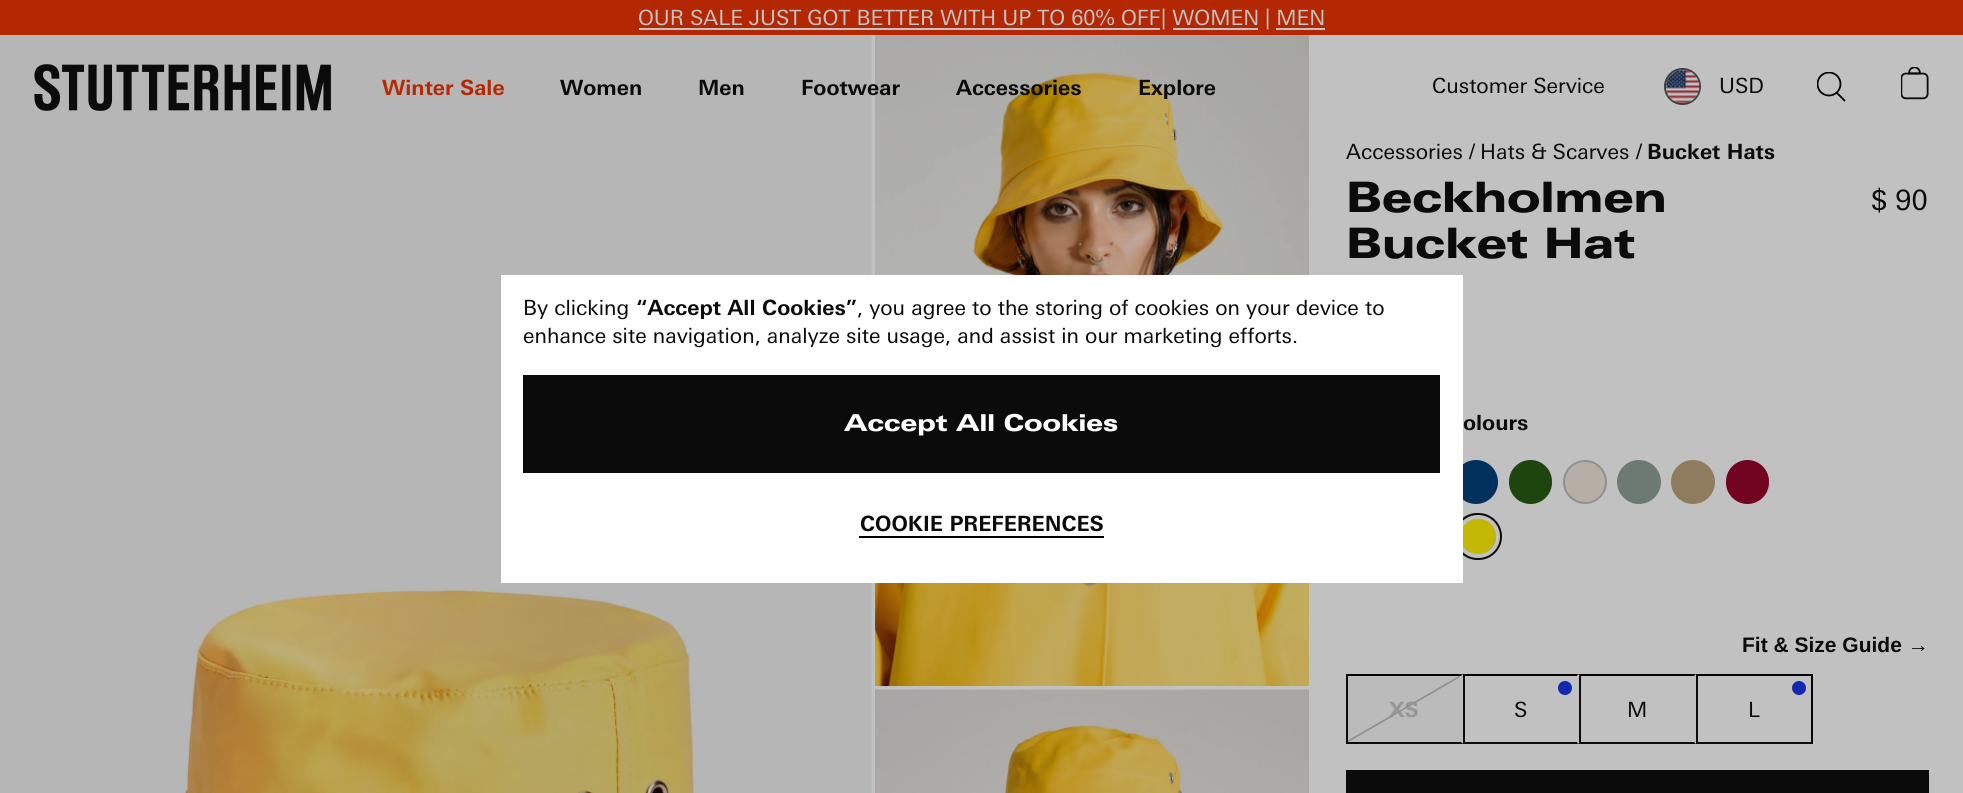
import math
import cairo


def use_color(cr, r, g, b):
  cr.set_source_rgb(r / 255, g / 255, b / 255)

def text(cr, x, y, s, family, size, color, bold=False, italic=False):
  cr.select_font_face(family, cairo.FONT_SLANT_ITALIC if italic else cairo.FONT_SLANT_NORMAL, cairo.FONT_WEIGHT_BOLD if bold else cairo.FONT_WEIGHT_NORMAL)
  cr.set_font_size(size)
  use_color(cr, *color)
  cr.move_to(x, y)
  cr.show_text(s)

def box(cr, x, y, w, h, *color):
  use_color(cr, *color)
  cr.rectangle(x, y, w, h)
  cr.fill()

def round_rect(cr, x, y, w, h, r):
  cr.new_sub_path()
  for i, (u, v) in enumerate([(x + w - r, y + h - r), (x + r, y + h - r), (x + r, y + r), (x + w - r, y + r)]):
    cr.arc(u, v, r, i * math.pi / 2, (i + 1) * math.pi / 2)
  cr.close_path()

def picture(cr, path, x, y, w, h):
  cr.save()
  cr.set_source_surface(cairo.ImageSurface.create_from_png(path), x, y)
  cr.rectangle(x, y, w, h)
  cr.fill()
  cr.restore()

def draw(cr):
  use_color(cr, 193, 193, 193)
  cr.paint()
  box(cr, 0, 0, 1963, 35, 179, 40, 3)
  box(cr, 639, 28, 521, 2, 194, 194, 194)
  box(cr, 1173, 28, 85, 2, 194, 194, 194)
  box(cr, 1276, 28, 49, 2, 194, 194, 194)
  picture(cr, "img_04.png", 0, 35, 872, 758)
  picture(cr, "img_01.png", 34, 64, 297, 47)
  cr.arc(1682.5, 86.5, 17.5, 0, 2 * math.pi)
  use_color(cr, 62, 62, 62)
  cr.stroke()
  picture(cr, "img_02.png", 1666, 70, 34, 34)
  cr.save()
  cr.rectangle(1817, 72, 29, 30)
  cr.clip()
  cr.arc(1829, 84, 11.5, 0, 2 * math.pi)
  use_color(cr, 3, 3, 3)
  cr.set_line_width(1.8)
  cr.stroke()
  cr.restore()
  cr.new_path()
  cr.move_to(1837, 93)
  cr.line_to(1844.5, 100.5)
  use_color(cr, 3, 3, 3)
  cr.set_line_width(1.8)
  cr.set_line_cap(cairo.LINE_CAP_ROUND)
  cr.stroke()
  picture(cr, "img_03.png", 1901, 67, 28, 33)
  picture(cr, "img_05.png", 875, 35, 434, 651)
  use_color(cr, 3, 49, 94)
  cr.arc(1476, 482, 22, 0, 2 * math.pi)
  cr.fill()
  use_color(cr, 194, 184, 3)
  cr.arc(1476, 535, 21, 0, 2 * math.pi)
  cr.fill_preserve()
  use_color(cr, 144, 144, 144)
  cr.set_line_width(2)
  cr.set_line_cap(cairo.LINE_CAP_BUTT)
  cr.stroke()
  round_rect(cr, 1458, 517, 40, 39, 19.5)
  use_color(cr, 193, 193, 193)
  cr.set_line_width(4)
  cr.stroke()
  round_rect(cr, 1455, 514, 46, 45, 22.5)
  use_color(cr, 11, 11, 11)
  cr.set_line_width(2)
  cr.stroke()
  box(cr, 501, 275, 962, 308, 255, 255, 255)
  box(cr, 523, 375, 917, 98, 11, 11, 11)
  box(cr, 859, 536, 245, 2, 0, 0, 0)
  picture(cr, "img_06.png", 875, 689, 434, 104)
  use_color(cr, 31, 69, 14)
  round_rect(cr, 1509, 460, 43, 44, 21.5)
  cr.fill()
  use_color(cr, 183, 175, 165)
  cr.arc(1585, 482, 21, 0, 2 * math.pi)
  cr.fill_preserve()
  use_color(cr, 144, 144, 144)
  cr.stroke()
  use_color(cr, 109, 122, 115)
  cr.arc(1639, 482, 22, 0, 2 * math.pi)
  cr.fill()
  use_color(cr, 143, 124, 94)
  cr.arc(1693, 482, 22, 0, 2 * math.pi)
  cr.fill()
  use_color(cr, 114, 4, 33)
  round_rect(cr, 1726, 460, 43, 44, 21.5)
  cr.fill()
  box(cr, 1348, 674, 115, 70, 187, 187, 187)
  use_color(cr, 3, 3, 3)
  cr.new_path()
  cr.move_to(1346, 674)
  cr.line_to(1463, 674)
  cr.line_to(1461, 676)
  cr.line_to(1348, 676)
  cr.close_path()
  cr.fill()
  use_color(cr, 11, 11, 11)
  cr.new_path()
  cr.move_to(1463, 744)
  cr.line_to(1346, 744)
  cr.line_to(1348, 742)
  cr.line_to(1461, 742)
  cr.close_path()
  cr.fill()
  box(cr, 1346, 674, 2, 70, 11, 11, 11)
  use_color(cr, 3, 3, 3)
  cr.new_path()
  cr.move_to(1463, 674)
  cr.line_to(1578, 674)
  cr.line_to(1577, 676)
  cr.line_to(1465, 676)
  cr.close_path()
  cr.fill()
  use_color(cr, 11, 11, 11)
  cr.new_path()
  cr.move_to(1578, 744)
  cr.line_to(1463, 744)
  cr.line_to(1465, 742)
  cr.line_to(1577, 742)
  cr.close_path()
  cr.fill()
  box(cr, 1463, 674, 2, 70, 11, 11, 11)
  use_color(cr, 18, 40, 179)
  cr.arc(1565, 688, 7, 0, 2 * math.pi)
  cr.fill()
  use_color(cr, 3, 3, 3)
  cr.new_path()
  cr.move_to(1578, 674)
  cr.line_to(1696, 674)
  cr.line_to(1694, 676)
  cr.line_to(1580, 676)
  cr.close_path()
  cr.fill()
  use_color(cr, 11, 11, 11)
  cr.new_path()
  cr.move_to(1696, 744)
  cr.line_to(1578, 744)
  cr.line_to(1580, 742)
  cr.line_to(1694, 742)
  cr.close_path()
  cr.fill()
  box(cr, 1579, 674, 2, 70, 11, 11, 11)
  box(cr, 1696, 674, 117, 2, 3, 3, 3)
  box(cr, 1811, 674, 2, 70, 3, 3, 3)
  box(cr, 1696, 742, 117, 2, 11, 11, 11)
  box(cr, 1696, 674, 2, 70, 11, 11, 11)
  use_color(cr, 18, 40, 179)
  cr.arc(1799, 688, 7, 0, 2 * math.pi)
  cr.fill()
  box(cr, 1346, 770, 583, 23, 11, 11, 11)
  text(cr, 638, 25, "OUR SALE JUST GOT BETTER WITH UP TO 60% OFF", "Univers Black", 21, (194, 194, 194))
  text(cr, 1161, 25, "| WOMEN", "Univers Black", 21, (194, 194, 194))
  text(cr, 1265, 25, "| MEN", "Univers Black", 21, (194, 194, 194))
  text(cr, 382, 95, "Winter Sale", "Univers", 21, (182, 40, 3), bold=True)
  text(cr, 560, 95, "Women", "Univers", 21, (11, 11, 11), bold=True)
  text(cr, 698, 95, "Men", "Univers", 21, (11, 11, 11), bold=True)
  text(cr, 801, 95, "Footwear", "Univers", 21, (11, 11, 11), bold=True)
  text(cr, 956, 95, "Accessories", "Univers", 21, (11, 11, 11), bold=True)
  text(cr, 1138, 95, "Explore", "Univers", 21, (11, 11, 11), bold=True)
  text(cr, 1432, 93, "Customer Service", "Univers Black", 21, (11, 11, 11))
  text(cr, 1719, 93, "USD", "Univers Black", 21, (11, 11, 11))
  text(cr, 523, 315, "By clicking", "Univers Black", 21, (11, 11, 11))
  text(cr, 636, 315, "“Accept All Cookies”", "Univers", 21, (11, 11, 11), bold=True)
  text(cr, 857, 315, ", you agree to the storing of cookies on your device to", "Univers Black", 21, (11, 11, 11))
  text(cr, 523, 343, "enhance site navigation, analyze site usage, and assist in our marketing efforts.", "Univers Black", 21, (11, 11, 11))
  text(cr, 844, 431, "Accept All Cookies", "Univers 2 Black", 23.25, (253, 253, 253))
  text(cr, 860, 531, "COOKIE PREFERENCES", "Univers", 21, (11, 11, 11), bold=True)
  text(cr, 1346, 159, "Accessories", "Univers Black", 21, (11, 11, 11))
  text(cr, 1469, 159, "/", "Univers Black", 21, (11, 11, 11))
  text(cr, 1480, 159, "Hats & Scarves", "Univers Black", 21, (11, 11, 11))
  text(cr, 1636, 159, "/", "Univers Black", 21, (11, 11, 11))
  text(cr, 1647, 159, "Bucket Hats", "Univers", 21, (11, 11, 11), bold=True)
  text(cr, 1346, 212, "Beckholmen", "Univers 2 Black", 42, (11, 11, 11))
  text(cr, 1346, 258, "Bucket Hat", "Univers 2 Black", 42, (11, 11, 11))
  text(cr, 1871, 210, "$ 90", "Univers Black", 28, (11, 11, 11))
  text(cr, 1463, 430, "olours", "Univers", 21, (11, 11, 11), bold=True)
  text(cr, 1742, 652, "Fit & Size Guide →", "Liberation Sans", 21, (11, 11, 11), bold=True)
  text(cr, 1389, 717, "XS", "Univers", 21, (150, 150, 150), bold=True)
  cr.new_path()
  cr.move_to(1348.5, 741)
  cr.line_to(1459.5, 676.5)
  use_color(cr, 144, 144, 144)
  cr.set_line_width(1.7)
  cr.stroke()
  text(cr, 1514, 717, "S", "Univers Black", 21, (11, 11, 11))
  text(cr, 1627, 717, "M", "Univers Black", 21, (11, 11, 11))
  text(cr, 1748, 717, "L", "Univers Black", 21, (11, 11, 11))


surface = cairo.ImageSurface(cairo.FORMAT_RGB24, 1963, 793)
cr = cairo.Context(surface)
options = cairo.FontOptions()
options.set_hint_metrics(cairo.HINT_METRICS_OFF)
options.set_hint_style(cairo.HINT_STYLE_NONE)
cr.set_font_options(options)
cr.set_miter_limit(4)
draw(cr)
surface.write_to_png("out.png")
